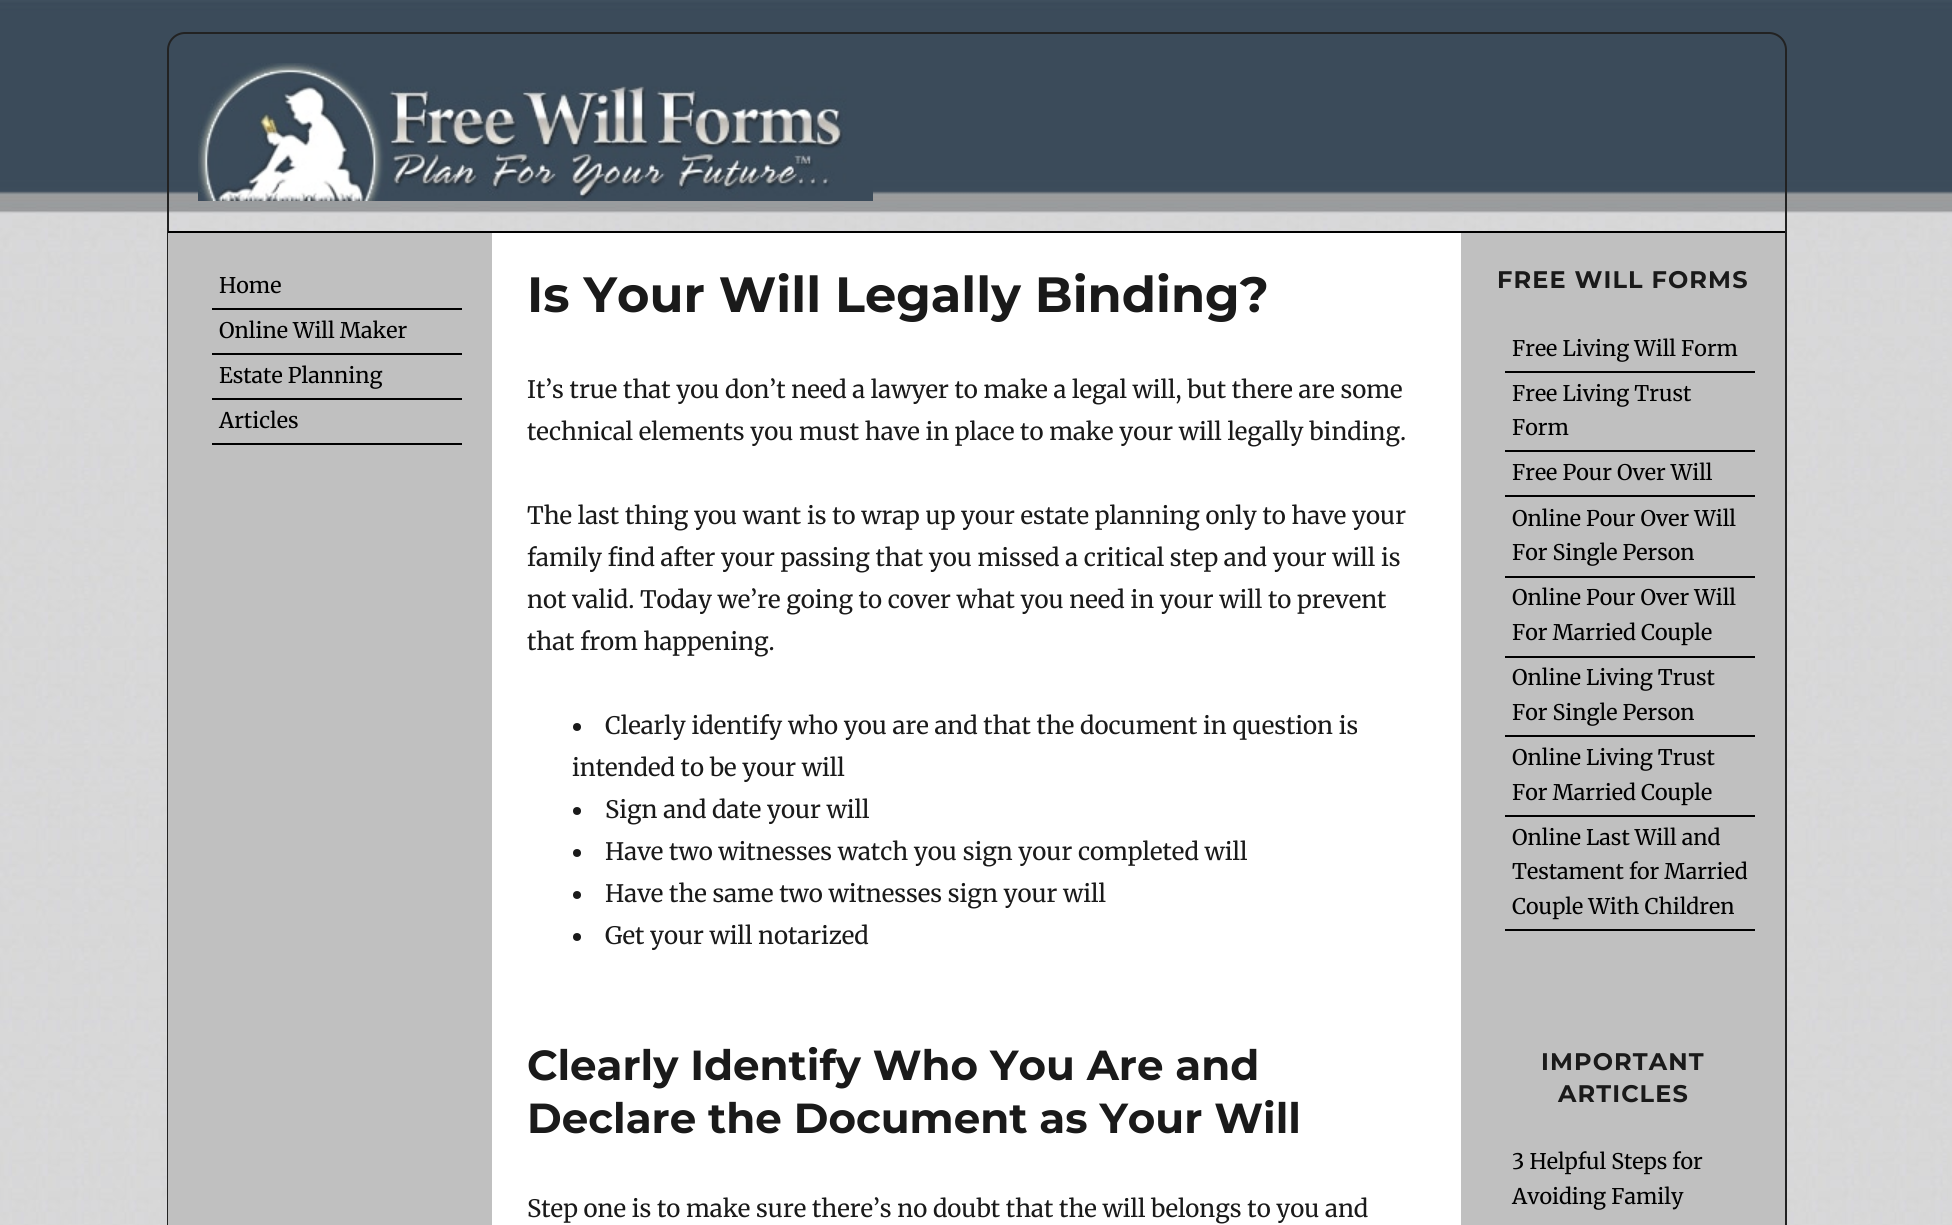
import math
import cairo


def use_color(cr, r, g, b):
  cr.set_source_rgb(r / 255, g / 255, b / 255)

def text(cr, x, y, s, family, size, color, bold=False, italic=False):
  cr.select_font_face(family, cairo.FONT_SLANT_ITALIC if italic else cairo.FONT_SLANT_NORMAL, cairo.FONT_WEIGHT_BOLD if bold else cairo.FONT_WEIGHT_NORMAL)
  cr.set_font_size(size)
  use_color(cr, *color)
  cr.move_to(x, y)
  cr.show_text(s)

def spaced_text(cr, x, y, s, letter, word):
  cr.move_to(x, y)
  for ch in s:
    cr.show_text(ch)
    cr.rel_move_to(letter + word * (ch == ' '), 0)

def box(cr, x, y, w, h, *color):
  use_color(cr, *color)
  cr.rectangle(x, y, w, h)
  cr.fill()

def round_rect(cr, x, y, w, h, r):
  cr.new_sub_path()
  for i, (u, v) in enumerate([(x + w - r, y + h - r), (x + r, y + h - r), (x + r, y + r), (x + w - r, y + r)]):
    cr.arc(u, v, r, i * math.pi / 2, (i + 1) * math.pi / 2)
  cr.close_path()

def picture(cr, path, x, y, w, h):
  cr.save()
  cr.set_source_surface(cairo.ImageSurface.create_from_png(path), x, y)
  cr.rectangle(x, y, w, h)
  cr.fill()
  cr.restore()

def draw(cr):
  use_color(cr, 255, 255, 255)
  cr.paint()
  picture(cr, "img_01.png", 0, 0, 1952, 1225)
  round_rect(cr, 168, 33, 1618, 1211, 17)
  use_color(cr, 34, 34, 34)
  cr.stroke()
  box(cr, 168, 231, 1617, 2, 0, 0, 0)
  picture(cr, "img_02.png", 198, 63, 675, 138)
  box(cr, 168, 233, 324, 992, 192, 192, 192)
  box(cr, 212, 308, 250, 2, 0, 0, 0)
  box(cr, 212, 353, 250, 2, 0, 0, 0)
  box(cr, 212, 398, 250, 2, 0, 0, 0)
  box(cr, 212, 443, 250, 2, 0, 0, 0)
  box(cr, 492, 233, 969, 992, 255, 255, 255)
  use_color(cr, 26, 26, 26)
  cr.arc(577, 727, 4, 0, 2 * math.pi)
  cr.fill()
  cr.arc(577, 811, 4, 0, 2 * math.pi)
  cr.fill()
  cr.arc(577, 853, 4, 0, 2 * math.pi)
  cr.fill()
  cr.arc(577, 895, 4, 0, 2 * math.pi)
  cr.fill()
  cr.arc(577, 937, 4, 0, 2 * math.pi)
  cr.fill()
  box(cr, 1461, 233, 324, 992, 192, 192, 192)
  box(cr, 1505, 371, 250, 2, 0, 0, 0)
  box(cr, 1505, 450, 250, 2, 0, 0, 0)
  box(cr, 1505, 495, 250, 2, 0, 0, 0)
  box(cr, 1505, 576, 250, 2, 0, 0, 0)
  box(cr, 1505, 656, 250, 2, 0, 0, 0)
  box(cr, 1505, 735, 250, 2, 0, 0, 0)
  box(cr, 1505, 815, 250, 2, 0, 0, 0)
  box(cr, 1505, 929, 250, 2, 0, 0, 0)
  text(cr, 219, 293, "Home", "Merriweather", 21.5, (0, 0, 0))
  text(cr, 219, 338, "Online Will Maker", "Merriweather", 21.5, (0, 0, 0))
  text(cr, 219, 383, "Estate Planning", "Merriweather", 21.5, (0, 0, 0))
  text(cr, 219, 428, "Articles", "Merriweather", 21.5, (0, 0, 0))
  text(cr, 527, 312, "Is Your Will Legally Binding?", "Montserrat", 49.5, (26, 26, 26), bold=True)
  text(cr, 527, 398, "It’s true that you don’t need a lawyer to make a legal will, but there are some", "Merriweather", 24, (26, 26, 26))
  text(cr, 527, 440, "technical elements you must have in place to make your will legally binding.", "Merriweather", 24, (26, 26, 26))
  text(cr, 527, 524, "The last thing you want is to wrap up your estate planning only to have your", "Merriweather", 24, (26, 26, 26))
  text(cr, 527, 566, "family find after your passing that you missed a critical step and your will is", "Merriweather", 24, (26, 26, 26))
  text(cr, 527, 608, "not valid. Today we’re going to cover what you need in your will to prevent", "Merriweather", 24, (26, 26, 26))
  text(cr, 527, 650, "that from happening.", "Merriweather", 24, (26, 26, 26))
  text(cr, 605, 734, "Clearly identify who you are and that the document in question is", "Merriweather", 24, (26, 26, 26))
  text(cr, 572, 776, "intended to be your will", "Merriweather", 24, (26, 26, 26))
  text(cr, 605, 818, "Sign and date your will", "Merriweather", 24, (26, 26, 26))
  text(cr, 605, 860, "Have two witnesses watch you sign your completed will", "Merriweather", 24, (26, 26, 26))
  text(cr, 605, 902, "Have the same two witnesses sign your will", "Merriweather", 24, (26, 26, 26))
  text(cr, 605, 944, "Get your will notarized", "Merriweather", 24, (26, 26, 26))
  text(cr, 527, 1080, "Clearly Identify Who You Are and", "Montserrat", 42, (26, 26, 26), bold=True)
  text(cr, 527, 1133, "Declare the Document as Your Will", "Montserrat", 42, (26, 26, 26), bold=True)
  text(cr, 527, 1217, "Step one is to make sure there’s no doubt that the will belongs to you and", "Merriweather", 24, (26, 26, 26))
  cr.select_font_face("Montserrat", cairo.FONT_SLANT_NORMAL, cairo.FONT_WEIGHT_BOLD)
  spaced_text(cr, 1497, 288, "FREE WILL FORMS", 1.1, 0)
  text(cr, 1512, 356, "Free Living Will Form", "Merriweather", 21.5, (0, 0, 0))
  text(cr, 1512, 401, "Free Living Trust", "Merriweather", 21.5, (0, 0, 0))
  text(cr, 1512, 435, "Form", "Merriweather", 21.5, (0, 0, 0))
  text(cr, 1512, 480, "Free Pour Over Will", "Merriweather", 21.5, (0, 0, 0))
  text(cr, 1512, 526, "Online Pour Over Will", "Merriweather", 21.5, (0, 0, 0))
  text(cr, 1512, 560, "For Single Person", "Merriweather", 21.5, (0, 0, 0))
  text(cr, 1512, 605, "Online Pour Over Will", "Merriweather", 21.5, (0, 0, 0))
  text(cr, 1512, 640, "For Married Couple", "Merriweather", 21.5, (0, 0, 0))
  text(cr, 1512, 685, "Online Living Trust", "Merriweather", 21.5, (0, 0, 0))
  text(cr, 1512, 720, "For Single Person", "Merriweather", 21.5, (0, 0, 0))
  text(cr, 1512, 765, "Online Living Trust", "Merriweather", 21.5, (0, 0, 0))
  text(cr, 1512, 800, "For Married Couple", "Merriweather", 21.5, (0, 0, 0))
  text(cr, 1512, 845, "Online Last Will and", "Merriweather", 21.5, (0, 0, 0))
  text(cr, 1512, 879, "Testament for Married", "Merriweather", 21.5, (0, 0, 0))
  text(cr, 1512, 914, "Couple With Children", "Merriweather", 21.5, (0, 0, 0))
  cr.select_font_face("Montserrat", cairo.FONT_SLANT_NORMAL, cairo.FONT_WEIGHT_BOLD)
  cr.set_font_size(24)
  use_color(cr, 26, 26, 26)
  spaced_text(cr, 1541, 1070, "IMPORTANT", 1.1, 0)
  spaced_text(cr, 1558, 1102, "ARTICLES", 1.1, 0)
  text(cr, 1512, 1169, "3 Helpful Steps for", "Merriweather", 21.5, (0, 0, 0))
  text(cr, 1512, 1204, "Avoiding Family", "Merriweather", 21.5, (0, 0, 0))


surface = cairo.ImageSurface(cairo.FORMAT_RGB24, 1952, 1225)
cr = cairo.Context(surface)
options = cairo.FontOptions()
options.set_hint_metrics(cairo.HINT_METRICS_OFF)
options.set_hint_style(cairo.HINT_STYLE_NONE)
cr.set_font_options(options)
cr.set_miter_limit(4)
draw(cr)
surface.write_to_png("out.png")
